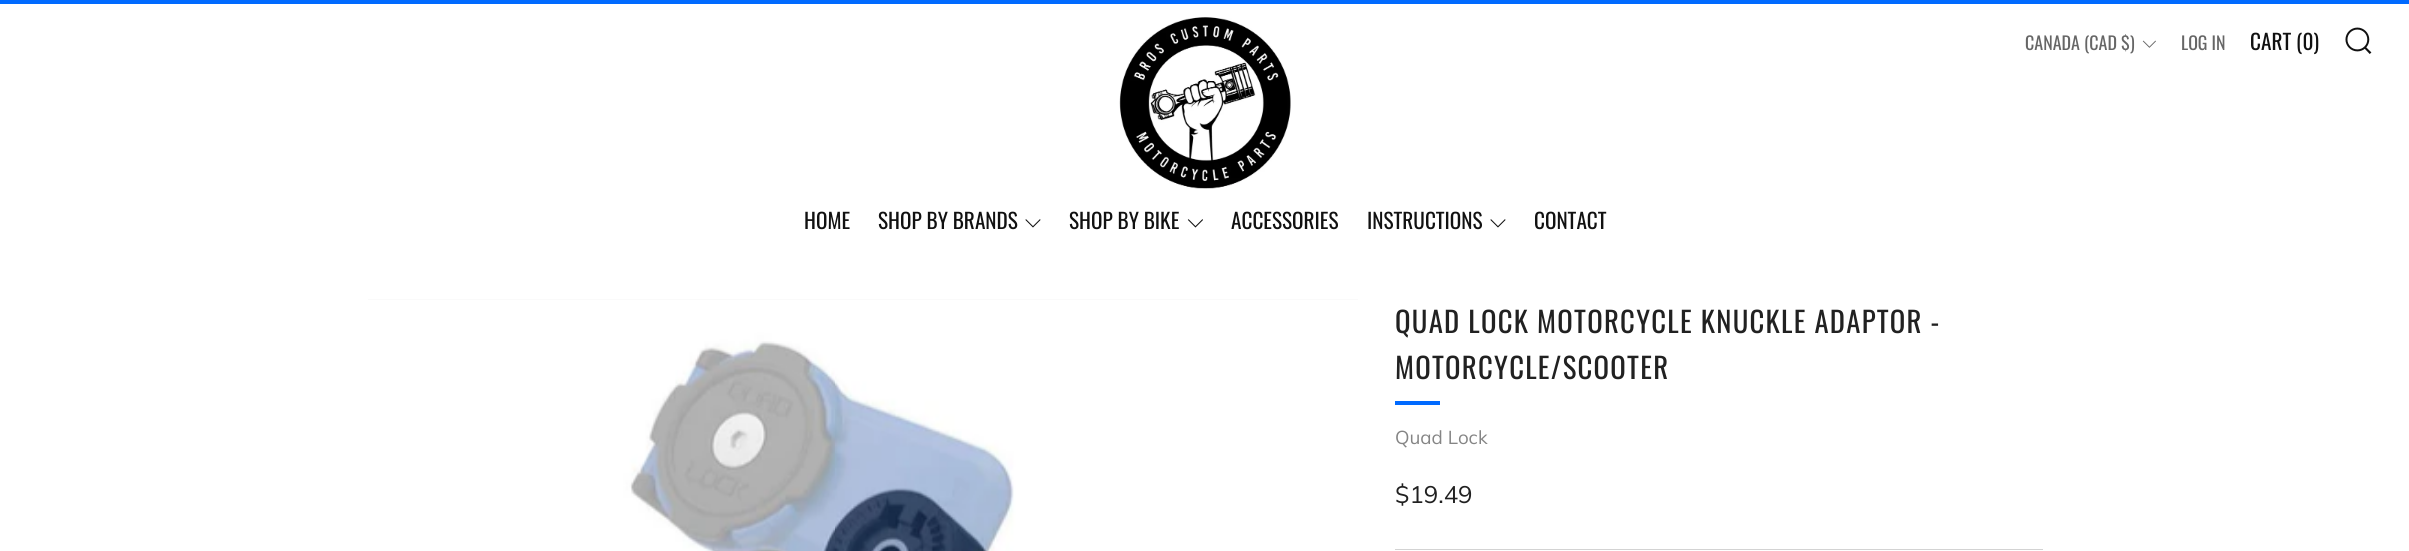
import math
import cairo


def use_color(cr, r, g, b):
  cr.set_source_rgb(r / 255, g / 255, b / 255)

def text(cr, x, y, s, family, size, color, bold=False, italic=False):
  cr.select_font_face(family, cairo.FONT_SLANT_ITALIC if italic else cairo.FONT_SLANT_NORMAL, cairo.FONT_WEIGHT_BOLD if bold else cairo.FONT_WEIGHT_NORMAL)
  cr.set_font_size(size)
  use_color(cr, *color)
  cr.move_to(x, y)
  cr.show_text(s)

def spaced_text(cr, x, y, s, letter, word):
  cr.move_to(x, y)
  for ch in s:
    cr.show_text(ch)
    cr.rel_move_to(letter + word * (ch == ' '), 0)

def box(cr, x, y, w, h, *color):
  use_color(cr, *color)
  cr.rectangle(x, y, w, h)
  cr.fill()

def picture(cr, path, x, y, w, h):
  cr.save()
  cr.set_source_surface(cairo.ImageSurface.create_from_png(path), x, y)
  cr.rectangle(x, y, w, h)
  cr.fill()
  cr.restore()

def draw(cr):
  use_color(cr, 255, 255, 255)
  cr.paint()
  box(cr, 0, 0, 2409, 4, 0, 106, 255)
  picture(cr, "img_01.png", 1119, 17, 172, 172)
  picture(cr, "img_02.png", 2142, 40, 14, 8)
  picture(cr, "img_03.png", 2345, 27, 27, 27)
  picture(cr, "img_04.png", 1025, 219, 16, 9)
  picture(cr, "img_05.png", 1187, 219, 16, 9)
  picture(cr, "img_04.png", 1490, 219, 16, 9)
  box(cr, 368, 299, 990, 1, 238, 237, 240)
  picture(cr, "img_06.png", 368, 299, 990, 252)
  box(cr, 1395, 401, 45, 4, 0, 106, 255)
  box(cr, 1395, 549, 648, 1, 211, 211, 211)
  text(cr, 2025, 50, "CANADA (CAD $)", "Oswald", 18, (102, 102, 102))
  text(cr, 2181, 50, "LOG IN", "Oswald", 18, (102, 102, 102))
  text(cr, 2250, 50, "CART (0)", "Oswald", 21.25, (17, 17, 17))
  text(cr, 804, 229, "HOME", "Oswald", 21.25, (17, 17, 17))
  text(cr, 878, 229, "SHOP BY BRANDS", "Oswald", 21.25, (17, 17, 17))
  text(cr, 1069, 229, "SHOP BY BIKE", "Oswald", 21.25, (17, 17, 17))
  text(cr, 1231, 229, "ACCESSORIES", "Oswald", 21.25, (17, 17, 17))
  text(cr, 1367, 229, "INSTRUCTIONS", "Oswald", 21.25, (17, 17, 17))
  text(cr, 1534, 229, "CONTACT", "Oswald", 21.25, (17, 17, 17))
  cr.set_font_size(28.75)
  use_color(cr, 33, 33, 33)
  spaced_text(cr, 1395, 333, "QUAD LOCK MOTORCYCLE KNUCKLE ADAPTOR -", 1.25, 0)
  spaced_text(cr, 1395, 379, "MOTORCYCLE/SCOOTER", 1.25, 0)
  text(cr, 1395, 444, "Quad Lock", "Muli", 18.75, (133, 133, 133))
  text(cr, 1395, 503, "$19.49", "Muli", 24, (33, 33, 33))


surface = cairo.ImageSurface(cairo.FORMAT_RGB24, 2409, 551)
cr = cairo.Context(surface)
options = cairo.FontOptions()
options.set_hint_metrics(cairo.HINT_METRICS_OFF)
options.set_hint_style(cairo.HINT_STYLE_NONE)
cr.set_font_options(options)
cr.set_miter_limit(4)
draw(cr)
surface.write_to_png("out.png")
